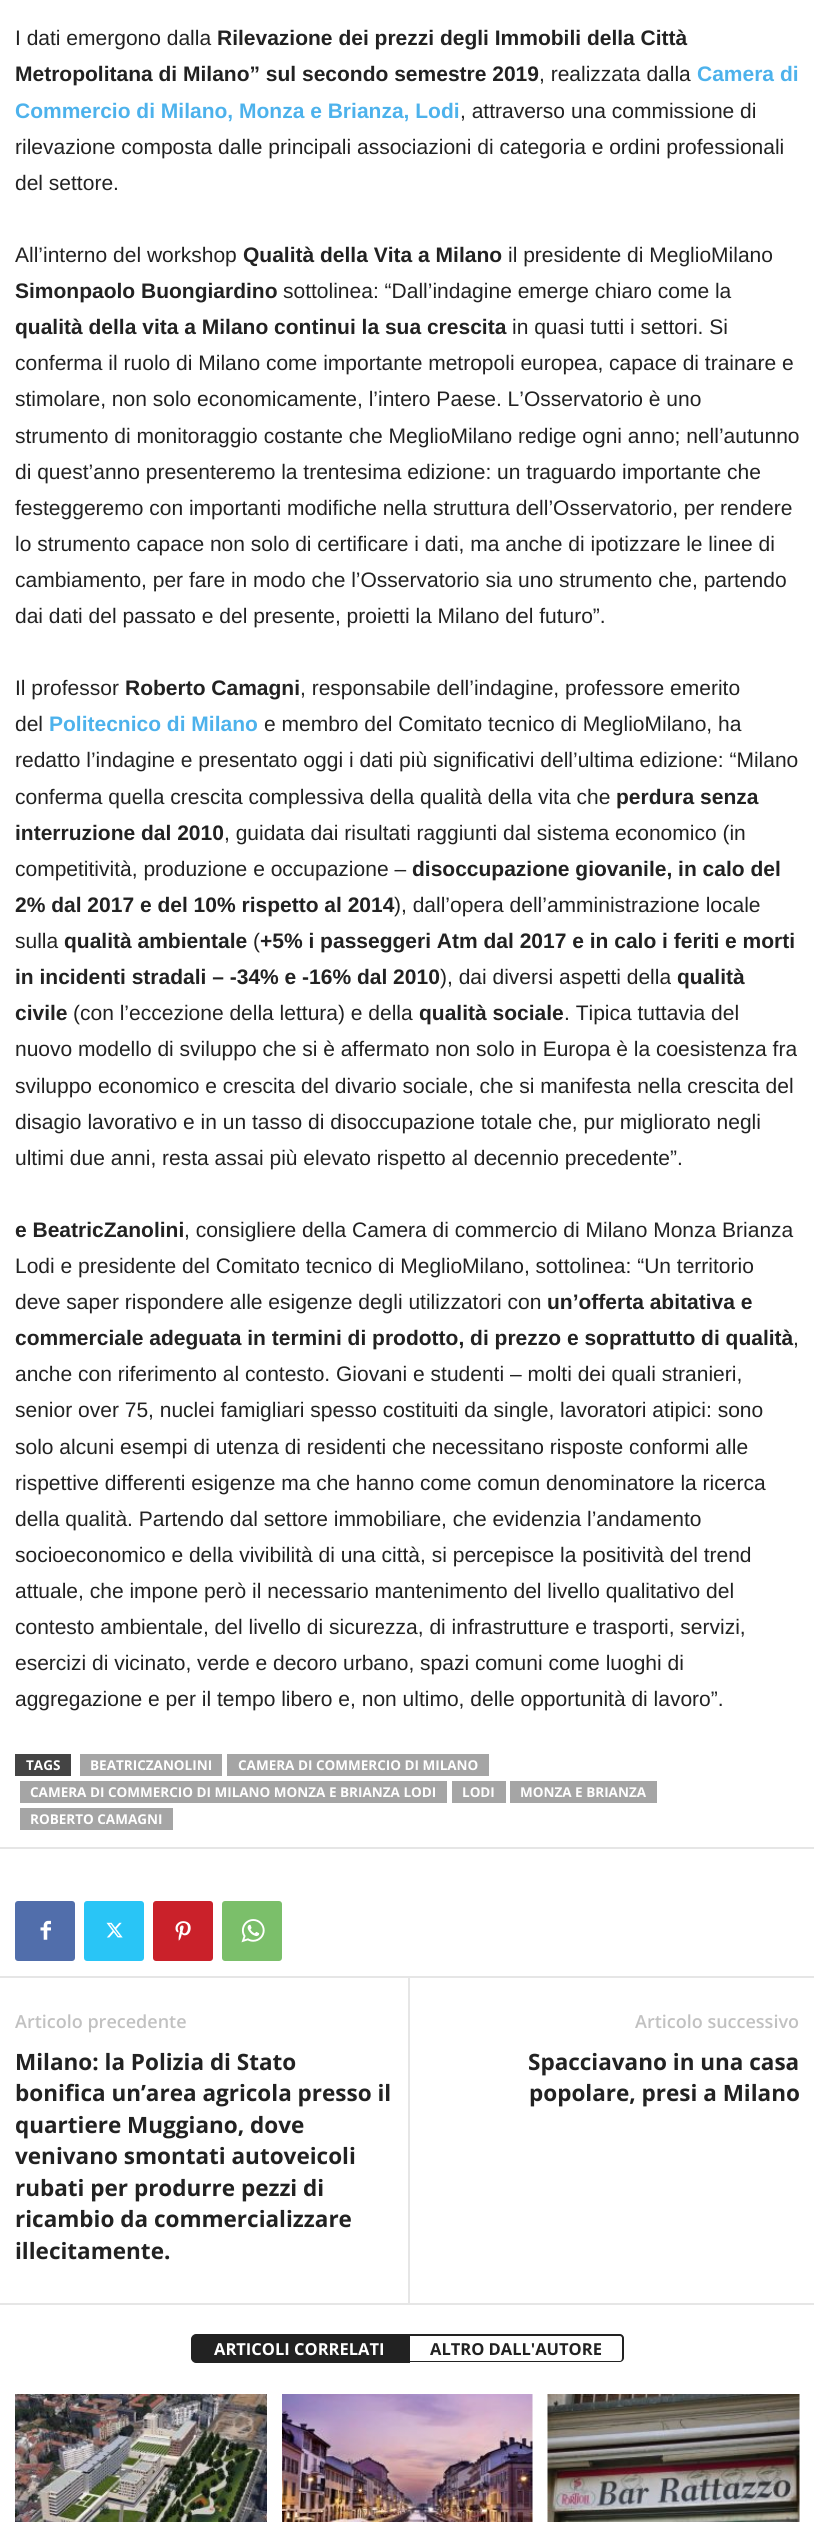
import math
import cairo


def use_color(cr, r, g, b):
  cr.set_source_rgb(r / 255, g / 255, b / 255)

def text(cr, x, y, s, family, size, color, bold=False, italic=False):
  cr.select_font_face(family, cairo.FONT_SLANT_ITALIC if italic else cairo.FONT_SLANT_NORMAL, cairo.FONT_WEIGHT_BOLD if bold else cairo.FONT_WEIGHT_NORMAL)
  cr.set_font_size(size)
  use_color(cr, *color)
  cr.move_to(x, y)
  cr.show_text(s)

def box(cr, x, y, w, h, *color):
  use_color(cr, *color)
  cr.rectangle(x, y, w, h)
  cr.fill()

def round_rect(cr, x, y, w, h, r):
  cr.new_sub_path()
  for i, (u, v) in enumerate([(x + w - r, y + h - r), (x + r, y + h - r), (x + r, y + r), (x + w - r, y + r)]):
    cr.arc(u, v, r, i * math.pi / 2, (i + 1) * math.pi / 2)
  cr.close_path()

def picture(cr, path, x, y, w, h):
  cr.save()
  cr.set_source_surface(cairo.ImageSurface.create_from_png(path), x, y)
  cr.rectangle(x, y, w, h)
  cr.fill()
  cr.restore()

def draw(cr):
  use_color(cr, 255, 255, 255)
  cr.paint()
  box(cr, 15, 1754, 56, 22, 68, 68, 68)
  box(cr, 80, 1754, 142, 22, 165, 165, 165)
  box(cr, 227, 1754, 262, 22, 165, 165, 165)
  box(cr, 20, 1781, 427, 22, 165, 165, 165)
  box(cr, 452, 1781, 54, 22, 165, 165, 165)
  box(cr, 510, 1781, 147, 22, 165, 165, 165)
  box(cr, 20, 1808, 153, 22, 165, 165, 165)
  box(cr, 0, 1847, 814, 2, 230, 230, 230)
  use_color(cr, 81, 110, 171)
  round_rect(cr, 15, 1901, 60, 60, 3)
  cr.fill()
  picture(cr, "img_01.png", 40, 1920, 11, 20)
  use_color(cr, 41, 197, 246)
  round_rect(cr, 84, 1901, 60, 60, 3)
  cr.fill()
  picture(cr, "img_02.png", 106, 1922, 17, 16)
  use_color(cr, 202, 33, 42)
  round_rect(cr, 153, 1901, 60, 60, 3)
  cr.fill()
  picture(cr, "img_03.png", 175, 1921, 16, 20)
  use_color(cr, 123, 191, 106)
  round_rect(cr, 222, 1901, 60, 60, 3)
  cr.fill()
  picture(cr, "img_04.png", 241, 1919, 24, 24)
  box(cr, 0, 1976, 814, 2, 230, 230, 230)
  box(cr, 408, 1977, 2, 326, 230, 230, 230)
  box(cr, 0, 2303, 814, 2, 230, 230, 230)
  use_color(cr, 34, 34, 34)
  cr.new_path()
  cr.move_to(196, 2335)
  cr.line_to(409, 2335)
  cr.line_to(409, 2362)
  cr.line_to(196, 2362)
  cr.curve_to(194, 2362, 192, 2360, 192, 2358)
  cr.line_to(192, 2339)
  cr.curve_to(192, 2337, 194, 2335, 196, 2335)
  cr.close_path()
  cr.fill_preserve()
  cr.stroke()
  cr.set_fill_rule(cairo.FILL_RULE_EVEN_ODD)
  cr.new_path()
  cr.move_to(410, 2334)
  cr.line_to(620, 2334)
  cr.curve_to(622, 2334, 624, 2336, 624, 2338)
  cr.line_to(624, 2358)
  cr.curve_to(624, 2360, 622, 2362, 620, 2362)
  cr.line_to(410, 2362)
  cr.close_path()
  cr.move_to(410, 2336)
  cr.line_to(620, 2336)
  cr.curve_to(621, 2336, 622, 2337, 622, 2338)
  cr.line_to(622, 2358)
  cr.curve_to(622, 2360, 621, 2361, 620, 2361)
  cr.line_to(410, 2361)
  cr.close_path()
  cr.fill()
  picture(cr, "img_05.png", 15, 2394, 252, 128)
  picture(cr, "img_06.png", 282, 2394, 251, 128)
  picture(cr, "img_07.png", 547, 2394, 253, 128)
  text(cr, 15, 45, "I dati emergono dalla", "Liberation Sans", 21, (34, 34, 34))
  text(cr, 217, 45, "Rilevazione dei prezzi degli Immobili della Città", "Liberation Sans", 21, (34, 34, 34), bold=True)
  text(cr, 15, 81, "Metropolitana di Milano” sul secondo semestre 2019", "Liberation Sans", 21, (34, 34, 34), bold=True)
  text(cr, 539, 81, ", realizzata dalla", "Liberation Sans", 21, (34, 34, 34))
  text(cr, 697, 81, "Camera di", "Liberation Sans", 21, (77, 178, 236), bold=True)
  text(cr, 15, 118, "Commercio di Milano, Monza e Brianza, Lodi", "Liberation Sans", 21, (77, 178, 236), bold=True)
  text(cr, 460, 118, ", attraverso una commissione di", "Liberation Sans", 21, (34, 34, 34))
  text(cr, 15, 154, "rilevazione composta dalle principali associazioni di categoria e ordini professionali", "Liberation Sans", 21, (34, 34, 34))
  text(cr, 15, 190, "del settore.", "Liberation Sans", 21, (34, 34, 34))
  text(cr, 15, 262, "All’interno del workshop", "Liberation Sans", 21, (34, 34, 34))
  text(cr, 243, 262, "Qualità della Vita a Milano", "Liberation Sans", 21, (34, 34, 34), bold=True)
  text(cr, 508, 262, "il presidente di MeglioMilano", "Liberation Sans", 21, (34, 34, 34))
  text(cr, 15, 298, "Simonpaolo Buongiardino", "Liberation Sans", 21, (34, 34, 34), bold=True)
  text(cr, 283, 298, "sottolinea: “Dall’indagine emerge chiaro come la", "Liberation Sans", 21, (34, 34, 34))
  text(cr, 15, 334, "qualità della vita a Milano continui la sua crescita", "Liberation Sans", 21, (34, 34, 34), bold=True)
  text(cr, 512, 334, "in quasi tutti i settori. Si", "Liberation Sans", 21, (34, 34, 34))
  text(cr, 15, 370, "conferma il ruolo di Milano come importante metropoli europea, capace di trainare e", "Liberation Sans", 21, (34, 34, 34))
  text(cr, 15, 406, "stimolare, non solo economicamente, l’intero Paese. L’Osservatorio è uno", "Liberation Sans", 21, (34, 34, 34))
  text(cr, 15, 443, "strumento di monitoraggio costante che MeglioMilano redige ogni anno; nell’autunno", "Liberation Sans", 21, (34, 34, 34))
  text(cr, 15, 479, "di quest’anno presenteremo la trentesima edizione: un traguardo importante che", "Liberation Sans", 21, (34, 34, 34))
  text(cr, 15, 515, "festeggeremo con importanti modifiche nella struttura dell’Osservatorio, per rendere", "Liberation Sans", 21, (34, 34, 34))
  text(cr, 15, 551, "lo strumento capace non solo di certificare i dati, ma anche di ipotizzare le linee di", "Liberation Sans", 21, (34, 34, 34))
  text(cr, 15, 587, "cambiamento, per fare in modo che l’Osservatorio sia uno strumento che, partendo", "Liberation Sans", 21, (34, 34, 34))
  text(cr, 15, 623, "dai dati del passato e del presente, proietti la Milano del futuro”.", "Liberation Sans", 21, (34, 34, 34))
  text(cr, 15, 695, "Il professor", "Liberation Sans", 21, (34, 34, 34))
  text(cr, 125, 695, "Roberto Camagni", "Liberation Sans", 21, (34, 34, 34), bold=True)
  text(cr, 300, 695, ", responsabile dell’indagine, professore emerito", "Liberation Sans", 21, (34, 34, 34))
  text(cr, 15, 731, "del", "Liberation Sans", 21, (34, 34, 34))
  text(cr, 49, 731, "Politecnico di Milano", "Liberation Sans", 21, (77, 178, 236), bold=True)
  text(cr, 264, 731, "e membro del Comitato tecnico di MeglioMilano, ha", "Liberation Sans", 21, (34, 34, 34))
  text(cr, 15, 767, "redatto l’indagine e presentato oggi i dati più significativi dell’ultima edizione: “Milano", "Liberation Sans", 21, (34, 34, 34))
  text(cr, 15, 804, "conferma quella crescita complessiva della qualità della vita che", "Liberation Sans", 21, (34, 34, 34))
  text(cr, 616, 804, "perdura senza", "Liberation Sans", 21, (34, 34, 34), bold=True)
  text(cr, 15, 840, "interruzione dal 2010", "Liberation Sans", 21, (34, 34, 34), bold=True)
  text(cr, 224, 840, ", guidata dai risultati raggiunti dal sistema economico (in", "Liberation Sans", 21, (34, 34, 34))
  text(cr, 15, 876, "competitività, produzione e occupazione –", "Liberation Sans", 21, (34, 34, 34))
  text(cr, 412, 876, "disoccupazione giovanile, in calo del", "Liberation Sans", 21, (34, 34, 34), bold=True)
  text(cr, 15, 912, "2% dal 2017 e del 10% rispetto al 2014", "Liberation Sans", 21, (34, 34, 34), bold=True)
  text(cr, 394, 912, "), dall’opera dell’amministrazione locale", "Liberation Sans", 21, (34, 34, 34))
  text(cr, 15, 948, "sulla", "Liberation Sans", 21, (34, 34, 34))
  text(cr, 64, 948, "qualità ambientale", "Liberation Sans", 21, (34, 34, 34), bold=True)
  text(cr, 253, 948, "(", "Liberation Sans", 21, (34, 34, 34))
  text(cr, 260, 948, "+5% i passeggeri Atm dal 2017 e in calo i feriti e morti", "Liberation Sans", 21, (34, 34, 34), bold=True)
  text(cr, 15, 984, "in incidenti stradali – -34% e -16% dal 2010", "Liberation Sans", 21, (34, 34, 34), bold=True)
  text(cr, 440, 984, "), dai diversi aspetti della", "Liberation Sans", 21, (34, 34, 34))
  text(cr, 677, 984, "qualità", "Liberation Sans", 21, (34, 34, 34), bold=True)
  text(cr, 15, 1020, "civile", "Liberation Sans", 21, (34, 34, 34), bold=True)
  text(cr, 73, 1020, "(con l’eccezione della lettura) e della", "Liberation Sans", 21, (34, 34, 34))
  text(cr, 419, 1020, "qualità sociale", "Liberation Sans", 21, (34, 34, 34), bold=True)
  text(cr, 564, 1020, ". Tipica tuttavia del", "Liberation Sans", 21, (34, 34, 34))
  text(cr, 15, 1056, "nuovo modello di sviluppo che si è affermato non solo in Europa è la coesistenza fra", "Liberation Sans", 21, (34, 34, 34))
  text(cr, 15, 1093, "sviluppo economico e crescita del divario sociale, che si manifesta nella crescita del", "Liberation Sans", 21, (34, 34, 34))
  text(cr, 15, 1129, "disagio lavorativo e in un tasso di disoccupazione totale che, pur migliorato negli", "Liberation Sans", 21, (34, 34, 34))
  text(cr, 15, 1165, "ultimi due anni, resta assai più elevato rispetto al decennio precedente”.", "Liberation Sans", 21, (34, 34, 34))
  text(cr, 15, 1237, "e BeatricZanolini", "Liberation Sans", 21, (34, 34, 34), bold=True)
  text(cr, 184, 1237, ", consigliere della Camera di commercio di Milano Monza Brianza", "Liberation Sans", 21, (34, 34, 34))
  text(cr, 15, 1273, "Lodi e presidente del Comitato tecnico di MeglioMilano, sottolinea: “Un territorio", "Liberation Sans", 21, (34, 34, 34))
  text(cr, 15, 1309, "deve saper rispondere alle esigenze degli utilizzatori con", "Liberation Sans", 21, (34, 34, 34))
  text(cr, 547, 1309, "un’offerta abitativa e", "Liberation Sans", 21, (34, 34, 34), bold=True)
  text(cr, 15, 1345, "commerciale adeguata in termini di prodotto, di prezzo e soprattutto di qualità", "Liberation Sans", 21, (34, 34, 34), bold=True)
  text(cr, 793, 1345, ",", "Liberation Sans", 21, (34, 34, 34))
  text(cr, 15, 1381, "anche con riferimento al contesto. Giovani e studenti – molti dei quali stranieri,", "Liberation Sans", 21, (34, 34, 34))
  text(cr, 15, 1417, "senior over 75, nuclei famigliari spesso costituiti da single, lavoratori atipici: sono", "Liberation Sans", 21, (34, 34, 34))
  text(cr, 15, 1454, "solo alcuni esempi di utenza di residenti che necessitano risposte conformi alle", "Liberation Sans", 21, (34, 34, 34))
  text(cr, 15, 1490, "rispettive differenti esigenze ma che hanno come comun denominatore la ricerca", "Liberation Sans", 21, (34, 34, 34))
  text(cr, 15, 1526, "della qualità. Partendo dal settore immobiliare, che evidenzia l’andamento", "Liberation Sans", 21, (34, 34, 34))
  text(cr, 15, 1562, "socioeconomico e della vivibilità di una città, si percepisce la positività del trend", "Liberation Sans", 21, (34, 34, 34))
  text(cr, 15, 1598, "attuale, che impone però il necessario mantenimento del livello qualitativo del", "Liberation Sans", 21, (34, 34, 34))
  text(cr, 15, 1634, "contesto ambientale, del livello di sicurezza, di infrastrutture e trasporti, servizi,", "Liberation Sans", 21, (34, 34, 34))
  text(cr, 15, 1670, "esercizi di vicinato, verde e decoro urbano, spazi comuni come luoghi di", "Liberation Sans", 21, (34, 34, 34))
  text(cr, 15, 1706, "aggregazione e per il tempo libero e, non ultimo, delle opportunità di lavoro”.", "Liberation Sans", 21, (34, 34, 34))
  text(cr, 26, 1770, "TAGS", "Open Sans", 13.5, (255, 255, 255), bold=True)
  text(cr, 90, 1770, "BEATRICZANOLINI", "Open Sans", 13.5, (255, 255, 255), bold=True)
  text(cr, 238, 1770, "CAMERA DI COMMERCIO DI MILANO", "Open Sans", 13.5, (255, 255, 255), bold=True)
  text(cr, 30, 1797, "CAMERA DI COMMERCIO DI MILANO MONZA E BRIANZA LODI", "Open Sans", 13.5, (255, 255, 255), bold=True)
  text(cr, 462, 1797, "LODI", "Open Sans", 13.5, (255, 255, 255), bold=True)
  text(cr, 520, 1797, "MONZA E BRIANZA", "Open Sans", 13.5, (255, 255, 255), bold=True)
  text(cr, 30, 1824, "ROBERTO CAMAGNI", "Open Sans", 13.5, (255, 255, 255), bold=True)
  text(cr, 15, 2028, "Articolo precedente", "Open Sans SemiBold", 18, (193, 193, 193))
  text(cr, 15, 2070, "Milano: la Polizia di Stato", "Open Sans", 22.5, (34, 34, 34), bold=True)
  text(cr, 15, 2101, "bonifica un’area agricola presso il", "Open Sans", 22.5, (34, 34, 34), bold=True)
  text(cr, 15, 2133, "quartiere Muggiano, dove", "Open Sans", 22.5, (34, 34, 34), bold=True)
  text(cr, 15, 2164, "venivano smontati autoveicoli", "Open Sans", 22.5, (34, 34, 34), bold=True)
  text(cr, 15, 2196, "rubati per produrre pezzi di", "Open Sans", 22.5, (34, 34, 34), bold=True)
  text(cr, 15, 2227, "ricambio da commercializzare", "Open Sans", 22.5, (34, 34, 34), bold=True)
  text(cr, 15, 2259, "illecitamente.", "Open Sans", 22.5, (34, 34, 34), bold=True)
  text(cr, 635, 2028, "Articolo successivo", "Open Sans SemiBold", 18, (193, 193, 193))
  text(cr, 528, 2070, "Spacciavano in una casa", "Open Sans", 22.5, (34, 34, 34), bold=True)
  text(cr, 529, 2101, "popolare, presi a Milano", "Open Sans", 22.5, (34, 34, 34), bold=True)
  text(cr, 214, 2355, "ARTICOLI CORRELATI", "Open Sans", 16.5, (255, 255, 255), bold=True)
  text(cr, 430, 2355, "ALTRO DALL'AUTORE", "Open Sans", 16.5, (34, 34, 34), bold=True)


surface = cairo.ImageSurface(cairo.FORMAT_RGB24, 814, 2522)
cr = cairo.Context(surface)
options = cairo.FontOptions()
options.set_hint_metrics(cairo.HINT_METRICS_OFF)
options.set_hint_style(cairo.HINT_STYLE_NONE)
cr.set_font_options(options)
cr.set_miter_limit(4)
draw(cr)
surface.write_to_png("out.png")
